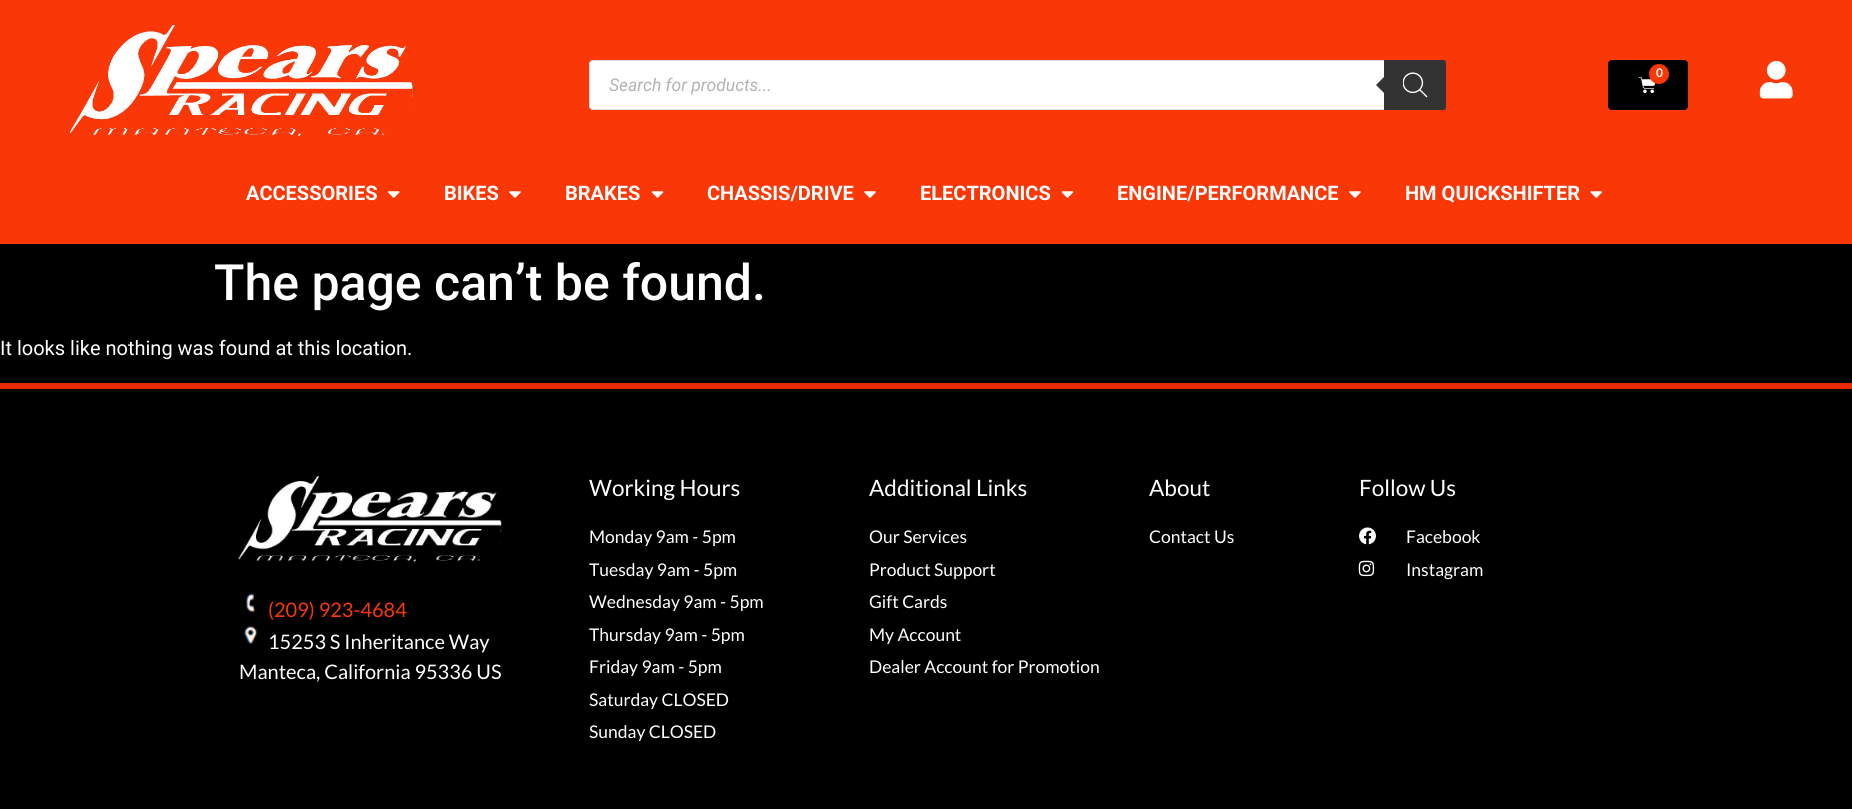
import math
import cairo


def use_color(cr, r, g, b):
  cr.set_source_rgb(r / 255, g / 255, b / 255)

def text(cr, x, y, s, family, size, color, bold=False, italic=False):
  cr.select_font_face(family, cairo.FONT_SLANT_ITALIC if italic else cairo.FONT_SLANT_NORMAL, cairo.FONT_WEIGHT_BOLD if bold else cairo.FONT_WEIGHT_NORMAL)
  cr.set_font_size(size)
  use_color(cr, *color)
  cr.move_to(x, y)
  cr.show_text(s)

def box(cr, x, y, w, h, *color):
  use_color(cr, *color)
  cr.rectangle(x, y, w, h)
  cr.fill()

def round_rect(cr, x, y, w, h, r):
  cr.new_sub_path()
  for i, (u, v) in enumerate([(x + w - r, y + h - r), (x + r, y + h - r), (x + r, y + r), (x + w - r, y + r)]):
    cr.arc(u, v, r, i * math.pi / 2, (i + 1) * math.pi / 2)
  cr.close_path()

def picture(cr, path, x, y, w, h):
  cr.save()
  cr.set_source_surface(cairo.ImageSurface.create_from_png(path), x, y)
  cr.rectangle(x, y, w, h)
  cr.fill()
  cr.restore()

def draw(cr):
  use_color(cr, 0, 0, 0)
  cr.paint()
  box(cr, 0, 0, 1852, 244, 249, 55, 7)
  picture(cr, "img_01.png", 70, 25, 343, 112)
  use_color(cr, 0, 0, 0)
  round_rect(cr, 1608.5, 60.5, 79, 49, 3.5)
  cr.fill_preserve()
  cr.set_line_width(1)
  cr.stroke()
  picture(cr, "img_02.png", 1638, 77, 18, 17)
  use_color(cr, 249, 55, 7)
  cr.arc(1659, 74, 10, 0, 2 * math.pi)
  cr.fill()
  picture(cr, "img_03.png", 1759, 60, 34, 39)
  use_color(cr, 255, 255, 255)
  round_rect(cr, 589.5, 60.5, 856, 49, 3.5)
  cr.fill_preserve()
  use_color(cr, 221, 221, 221)
  cr.stroke()
  use_color(cr, 51, 51, 51)
  cr.new_path()
  cr.move_to(1384, 60)
  cr.line_to(1443.5, 60)
  cr.curve_to(1445, 60, 1446, 61, 1446, 62.5)
  cr.line_to(1446, 107.5)
  cr.curve_to(1446, 109, 1445, 110, 1443.5, 110)
  cr.line_to(1384, 110)
  cr.close_path()
  cr.fill()
  cr.new_path()
  cr.move_to(1386, 75)
  cr.line_to(1386, 95)
  cr.line_to(1376, 85)
  cr.close_path()
  cr.fill()
  picture(cr, "img_04.png", 1403, 72, 25, 26)
  picture(cr, "img_05.png", 388, 191, 12, 7)
  picture(cr, "img_06.png", 509, 191, 12, 7)
  picture(cr, "img_07.png", 651, 191, 13, 7)
  picture(cr, "img_06.png", 864, 191, 12, 7)
  picture(cr, "img_07.png", 1061, 191, 13, 7)
  picture(cr, "img_06.png", 1349, 191, 12, 7)
  picture(cr, "img_08.png", 1590, 191, 12, 7)
  box(cr, 0, 383, 1852, 6, 232, 42, 0)
  picture(cr, "img_09.png", 1359, 527, 17, 18)
  picture(cr, "img_10.png", 1358, 560, 17, 17)
  picture(cr, "img_11.png", 238, 476, 264, 86)
  picture(cr, "img_12.png", 246, 593, 10, 20)
  picture(cr, "img_13.png", 243, 626, 14, 18)
  text(cr, 1656, 77, "0", "Lato", 12, (255, 255, 255), bold=True)
  text(cr, 609, 91, "Search for products...", "Roboto", 17.5, (179, 179, 179), italic=True)
  text(cr, 246, 200, "ACCESSORIES", "Roboto", 20, (255, 255, 255), bold=True)
  text(cr, 444, 200, "BIKES", "Roboto", 20, (255, 255, 255), bold=True)
  text(cr, 565, 200, "BRAKES", "Roboto", 20, (255, 255, 255), bold=True)
  text(cr, 707, 200, "CHASSIS/DRIVE", "Roboto", 20, (255, 255, 255), bold=True)
  text(cr, 920, 200, "ELECTRONICS", "Roboto", 20, (255, 255, 255), bold=True)
  text(cr, 1117, 200, "ENGINE/PERFORMANCE", "Roboto", 20, (255, 255, 255), bold=True)
  text(cr, 1405, 200, "HM QUICKSHIFTER", "Roboto", 20, (255, 255, 255), bold=True)
  text(cr, 214, 300, "The page can’t be found.", "Roboto Medium", 50, (255, 255, 255))
  text(cr, 0, 355, "It looks like nothing was found at this location.", "Roboto", 20, (255, 255, 255))
  text(cr, 589, 496, "Working Hours", "Lato", 22.5, (255, 255, 255))
  text(cr, 589, 543, "Monday 9am - 5pm", "Lato", 17.5, (255, 255, 255))
  text(cr, 589, 576, "Tuesday 9am - 5pm", "Lato", 17.5, (255, 255, 255))
  text(cr, 589, 608, "Wednesday 9am - 5pm", "Lato", 17.5, (255, 255, 255))
  text(cr, 589, 641, "Thursday 9am - 5pm", "Lato", 17.5, (255, 255, 255))
  text(cr, 589, 673, "Friday 9am - 5pm", "Lato", 17.5, (255, 255, 255))
  text(cr, 589, 706, "Saturday CLOSED", "Lato", 17.5, (255, 255, 255))
  text(cr, 589, 738, "Sunday CLOSED", "Lato", 17.5, (255, 255, 255))
  text(cr, 869, 496, "Additional Links", "Lato", 22.5, (255, 255, 255))
  text(cr, 869, 543, "Our Services", "Lato", 17.5, (255, 255, 255))
  text(cr, 869, 576, "Product Support", "Lato", 17.5, (255, 255, 255))
  text(cr, 869, 608, "Gift Cards", "Lato", 17.5, (255, 255, 255))
  text(cr, 869, 641, "My Account", "Lato", 17.5, (255, 255, 255))
  text(cr, 869, 673, "Dealer Account for Promotion", "Lato", 17.5, (255, 255, 255))
  text(cr, 1149, 496, "About", "Lato", 22.5, (255, 255, 255))
  text(cr, 1149, 543, "Contact Us", "Lato", 17.5, (255, 255, 255))
  text(cr, 1359, 496, "Follow Us", "Lato", 22.5, (255, 255, 255))
  text(cr, 1406, 543, "Facebook", "Lato", 17.5, (255, 255, 255))
  text(cr, 1406, 576, "Instagram", "Lato", 17.5, (255, 255, 255))
  text(cr, 268, 617, "(209) 923-4684", "Lato", 20, (249, 55, 7))
  text(cr, 268, 649, "15253 S Inheritance Way", "Lato", 20, (255, 255, 255))
  text(cr, 239, 679, "Manteca, California 95336 US", "Lato", 20, (255, 255, 255))


surface = cairo.ImageSurface(cairo.FORMAT_RGB24, 1852, 809)
cr = cairo.Context(surface)
options = cairo.FontOptions()
options.set_hint_metrics(cairo.HINT_METRICS_OFF)
options.set_hint_style(cairo.HINT_STYLE_NONE)
cr.set_font_options(options)
cr.set_miter_limit(4)
draw(cr)
surface.write_to_png("out.png")
